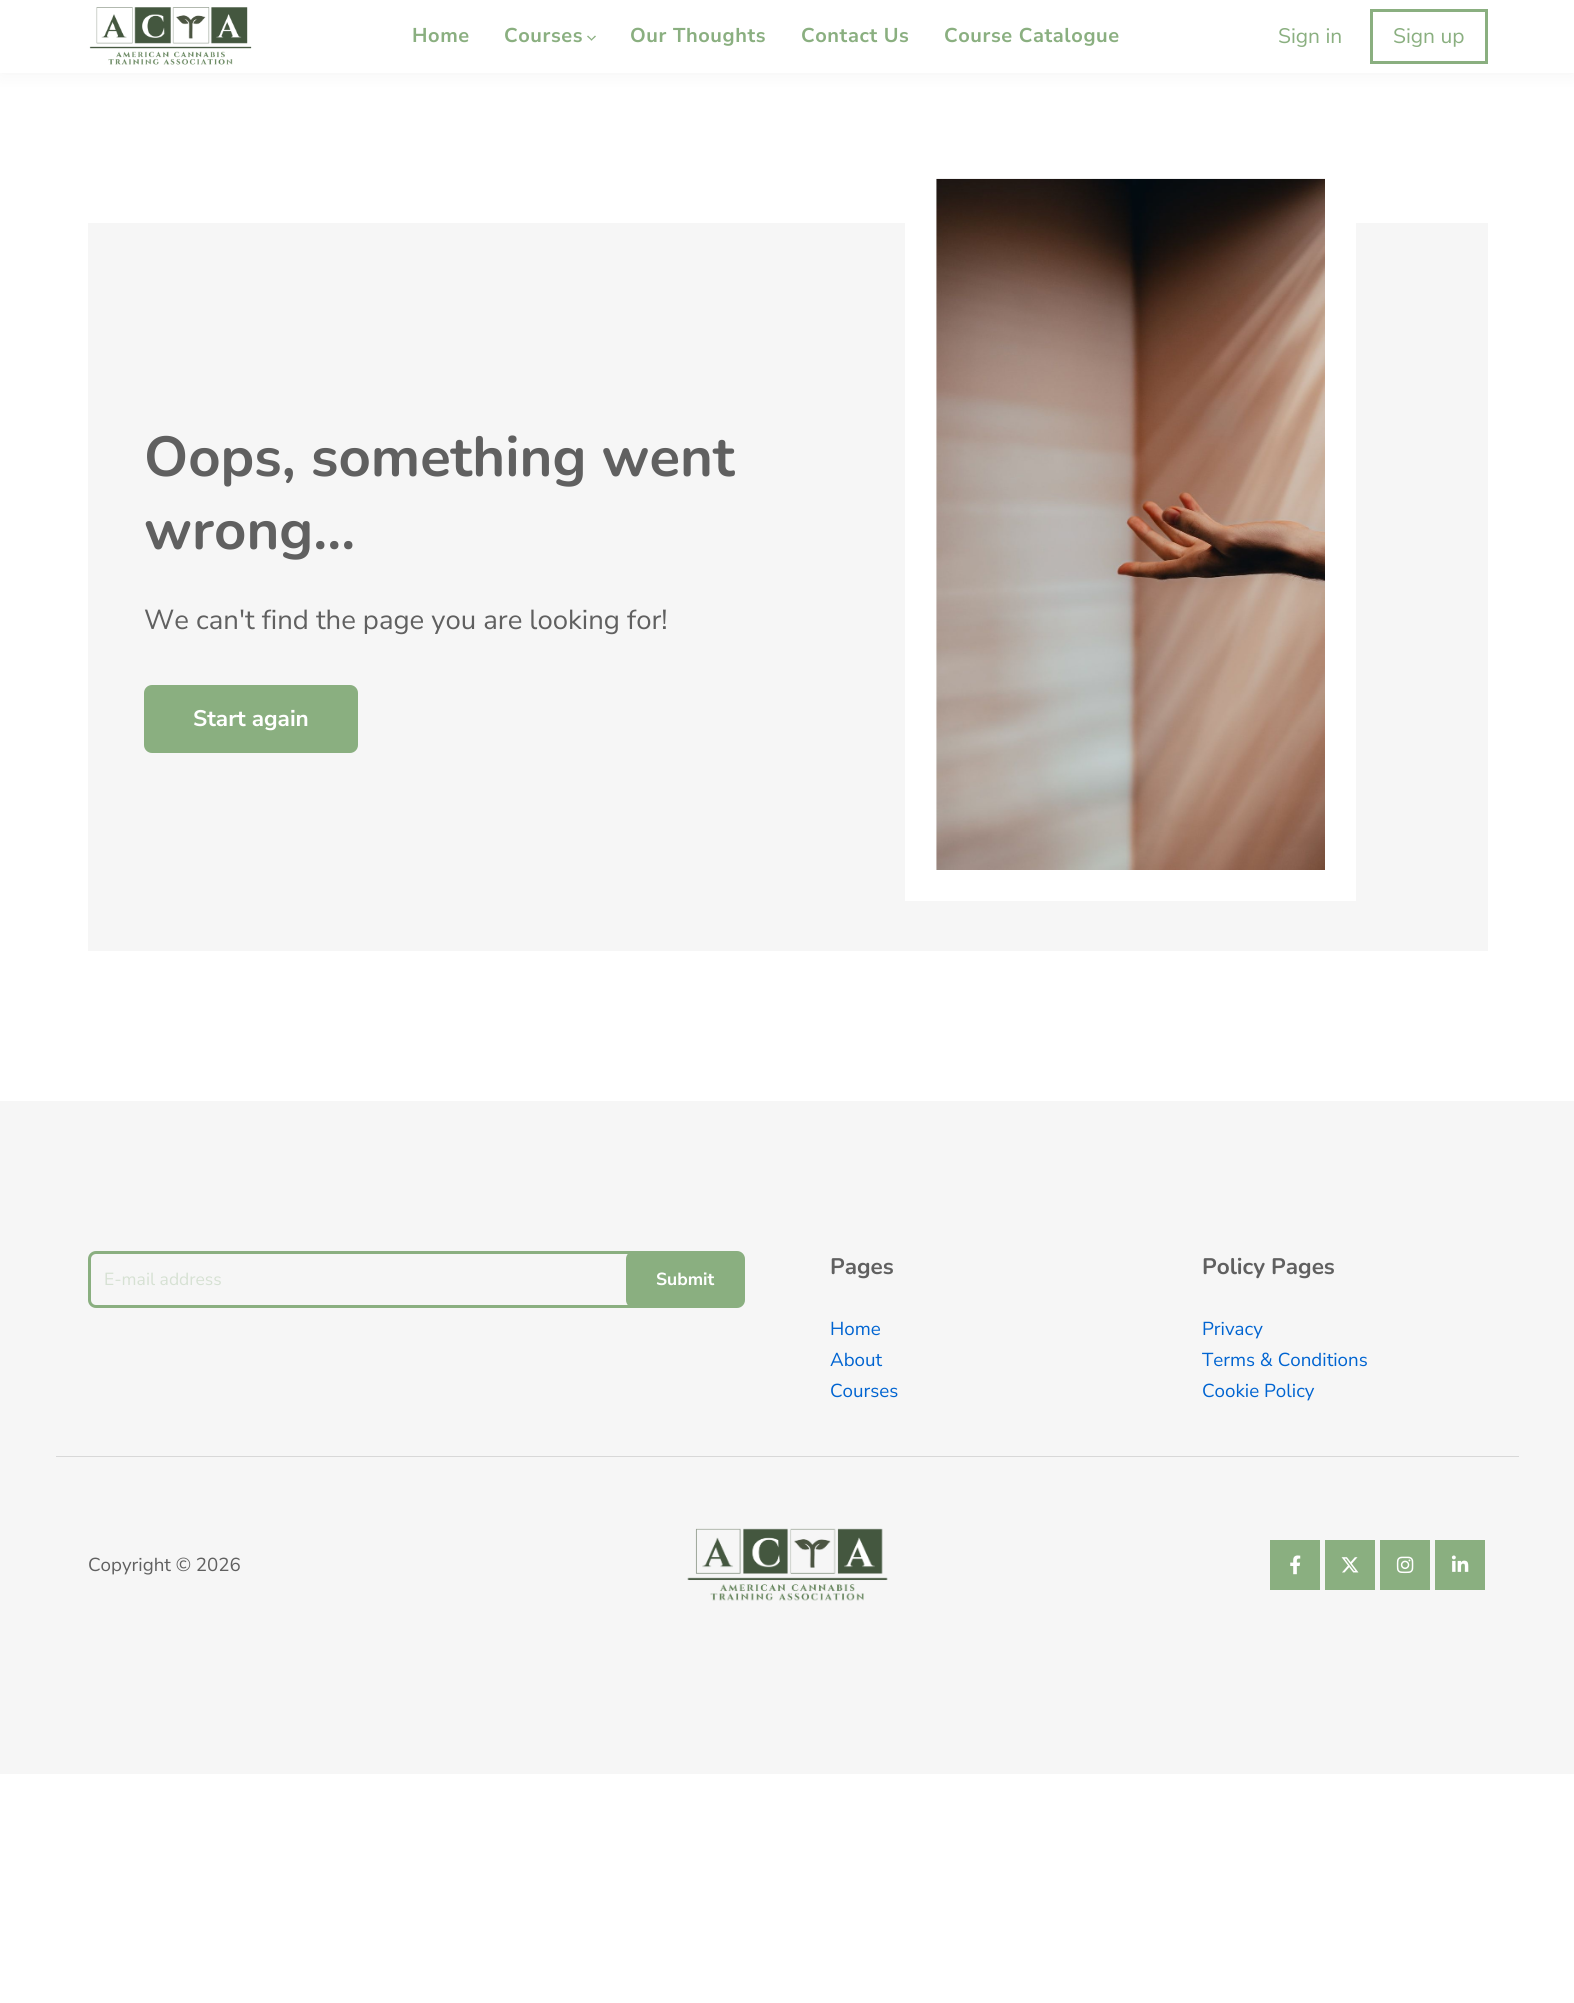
import math
import cairo


def use_color(cr, r, g, b):
  cr.set_source_rgb(r / 255, g / 255, b / 255)

def text(cr, x, y, s, family, size, color, bold=False, italic=False):
  cr.select_font_face(family, cairo.FONT_SLANT_ITALIC if italic else cairo.FONT_SLANT_NORMAL, cairo.FONT_WEIGHT_BOLD if bold else cairo.FONT_WEIGHT_NORMAL)
  cr.set_font_size(size)
  use_color(cr, *color)
  cr.move_to(x, y)
  cr.show_text(s)

def spaced_text(cr, x, y, s, letter, word):
  cr.move_to(x, y)
  for ch in s:
    cr.show_text(ch)
    cr.rel_move_to(letter + word * (ch == ' '), 0)

def box(cr, x, y, w, h, *color):
  use_color(cr, *color)
  cr.rectangle(x, y, w, h)
  cr.fill()

def round_rect(cr, x, y, w, h, r):
  cr.new_sub_path()
  for i, (u, v) in enumerate([(x + w - r, y + h - r), (x + r, y + h - r), (x + r, y + r), (x + w - r, y + r)]):
    cr.arc(u, v, r, i * math.pi / 2, (i + 1) * math.pi / 2)
  cr.close_path()

def shadow(cr, x, y, w, h, r, blur, alpha):
  cr.push_group_with_content(cairo.CONTENT_ALPHA)
  cr.set_operator(cairo.OPERATOR_SOURCE)
  for i in range(15, -16, -2):
    e = blur * i / 6
    if min(w, h) + 2 * e > 0:
      cr.set_source_rgba(0, 0, 0, alpha * math.erfc((i - 1) / 8.5) / 2)
      round_rect(cr, x - e, y - e, w + 2 * e, h + 2 * e, max(0, min(r + e + blur * .6, min(w, h) / 2 + e)))
      cr.fill()
  cr.mask(cr.pop_group())

def picture(cr, path, x, y, w, h):
  cr.save()
  cr.set_source_surface(cairo.ImageSurface.create_from_png(path), x, y)
  cr.rectangle(x, y, w, h)
  cr.fill()
  cr.restore()

def draw(cr):
  use_color(cr, 255, 255, 255)
  cr.paint()
  use_color(cr, 0, 0, 0)
  shadow(cr, 0, 0, 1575, 73, 0, 9.5, 0.05)
  box(cr, 0, 0, 1574, 73, 255, 255, 255)
  picture(cr, "img_01.png", 89, 7, 163, 58)
  use_color(cr, 138, 175, 128)
  cr.new_path()
  cr.move_to(596, 36.5)
  cr.line_to(591.5, 40.5)
  cr.line_to(590.5, 40)
  cr.line_to(595, 35.5)
  cr.close_path()
  cr.fill()
  cr.new_path()
  cr.move_to(592.5, 40)
  cr.line_to(591.5, 40.5)
  cr.line_to(587, 36.5)
  cr.line_to(588, 35.5)
  cr.close_path()
  cr.fill()
  cr.rectangle(1371.5, 10.5, 115, 52)
  cr.set_line_width(3)
  cr.stroke()
  box(cr, 88, 223, 1400, 728, 246, 246, 246)
  use_color(cr, 138, 175, 128)
  round_rect(cr, 144, 685, 214, 68, 8)
  cr.fill()
  cr.rectangle(920.5, 163.5, 420, 722)
  use_color(cr, 255, 255, 255)
  cr.set_line_width(31)
  cr.stroke()
  box(cr, 936, 223, 1, 647, 255, 255, 255)
  picture(cr, "img_02.png", 936, 178, 389, 692)
  box(cr, 0, 1101, 1574, 673, 246, 246, 246)
  round_rect(cr, 89.5, 1252.5, 623, 54, 6.5)
  use_color(cr, 138, 175, 128)
  cr.set_line_width(3)
  cr.stroke()
  round_rect(cr, 626, 1251, 119, 57, 8)
  cr.fill()
  box(cr, 56, 1456, 1463, 1, 216, 216, 216)
  picture(cr, "img_03.png", 687, 1528, 201, 73)
  box(cr, 1270, 1540, 50, 50, 138, 175, 128)
  picture(cr, "img_04.png", 1290, 1555, 11, 20)
  box(cr, 1325, 1540, 50, 50, 138, 175, 128)
  picture(cr, "img_05.png", 1341, 1557, 18, 16)
  box(cr, 1380, 1540, 50, 50, 138, 175, 128)
  picture(cr, "img_06.png", 1396, 1556, 18, 18)
  box(cr, 1435, 1540, 50, 50, 138, 175, 128)
  picture(cr, "img_07.png", 1451, 1555, 18, 17)
  cr.select_font_face("Nunito Sans", cairo.FONT_SLANT_NORMAL, cairo.FONT_WEIGHT_BOLD)
  cr.set_font_size(20)
  spaced_text(cr, 412, 42, "Home", 0.6, 0)
  spaced_text(cr, 504, 42, "Courses", 0.6, 0)
  spaced_text(cr, 630, 42, "Our Thoughts", 0.6, 0)
  spaced_text(cr, 801, 42, "Contact Us", 0.6, 0)
  spaced_text(cr, 944, 42, "Course Catalogue", 0.6, 0)
  text(cr, 1278, 43, "Sign in", "Nunito Sans", 21, (138, 175, 128))
  text(cr, 1393, 43, "Sign up", "Nunito Sans", 21, (138, 175, 128))
  text(cr, 144, 476, "Oops, something went", "Nunito", 56.25, (96, 96, 96), bold=True)
  text(cr, 144, 549, "wrong...", "Nunito", 56.25, (96, 96, 96), bold=True)
  text(cr, 144, 629, "We can't find the page you are looking for!", "Nunito Sans", 27.5, (96, 96, 96))
  text(cr, 193, 726, "Start again", "Nunito Sans", 22.5, (255, 255, 255), bold=True)
  text(cr, 104, 1285, "E-mail address", "Nunito Sans", 17.5, (214, 225, 211))
  text(cr, 656, 1285, "Submit", "Nunito Sans", 17.5, (255, 255, 255), bold=True)
  text(cr, 830, 1274, "Pages", "Nunito", 22.5, (96, 96, 96), bold=True)
  text(cr, 830, 1335, "Home", "Nunito Sans", 18.75, (0, 100, 209))
  text(cr, 830, 1366, "About", "Nunito Sans", 18.75, (0, 100, 209))
  text(cr, 830, 1397, "Courses", "Nunito Sans", 18.75, (0, 100, 209))
  text(cr, 1202, 1274, "Policy Pages", "Nunito", 22.5, (96, 96, 96), bold=True)
  text(cr, 1202, 1335, "Privacy", "Nunito Sans", 18.75, (0, 100, 209))
  text(cr, 1202, 1366, "Terms & Conditions", "Nunito Sans", 18.75, (0, 100, 209))
  text(cr, 1202, 1397, "Cookie Policy", "Nunito Sans", 18.75, (0, 100, 209))
  text(cr, 88, 1571, "Copyright © 2026", "Nunito Sans", 18.75, (96, 96, 96))


surface = cairo.ImageSurface(cairo.FORMAT_RGB24, 1574, 2003)
cr = cairo.Context(surface)
options = cairo.FontOptions()
options.set_hint_metrics(cairo.HINT_METRICS_OFF)
options.set_hint_style(cairo.HINT_STYLE_NONE)
cr.set_font_options(options)
cr.set_miter_limit(4)
draw(cr)
surface.write_to_png("out.png")
